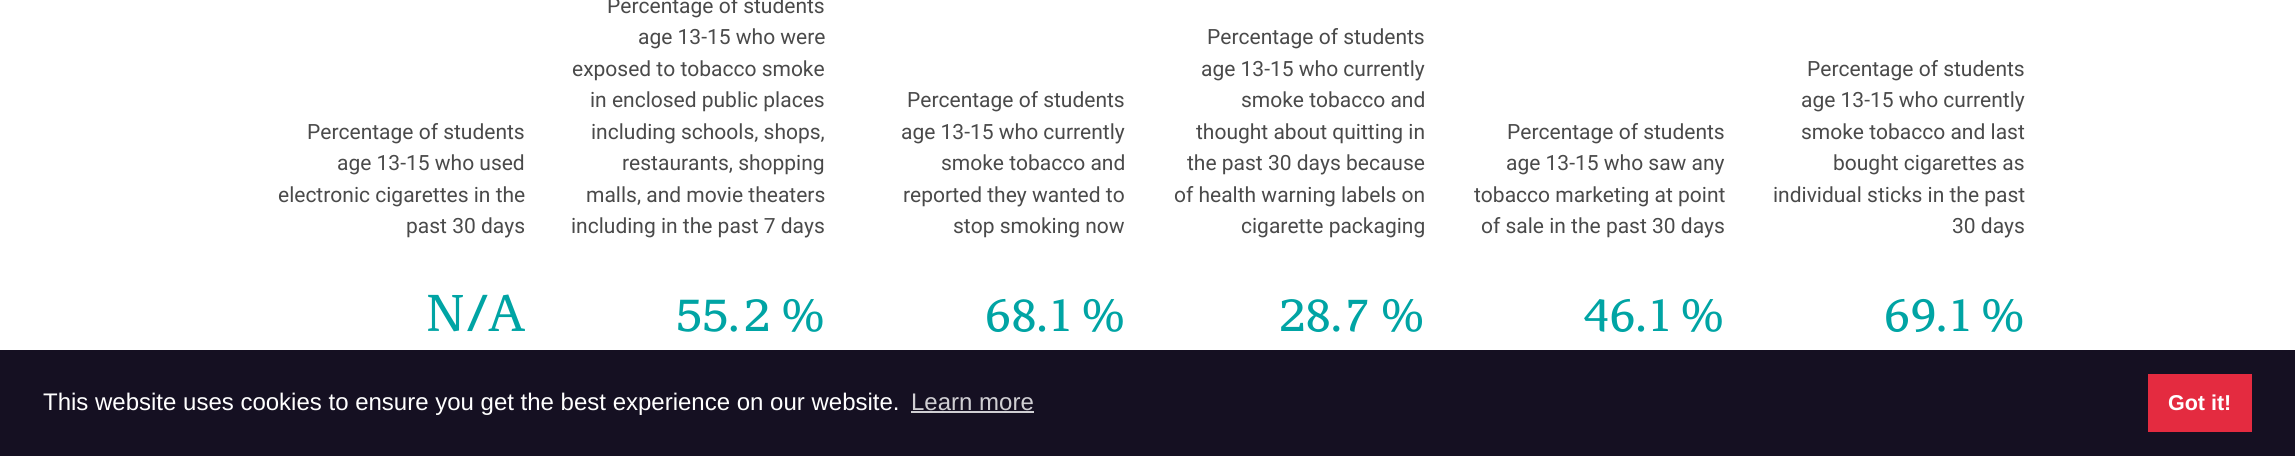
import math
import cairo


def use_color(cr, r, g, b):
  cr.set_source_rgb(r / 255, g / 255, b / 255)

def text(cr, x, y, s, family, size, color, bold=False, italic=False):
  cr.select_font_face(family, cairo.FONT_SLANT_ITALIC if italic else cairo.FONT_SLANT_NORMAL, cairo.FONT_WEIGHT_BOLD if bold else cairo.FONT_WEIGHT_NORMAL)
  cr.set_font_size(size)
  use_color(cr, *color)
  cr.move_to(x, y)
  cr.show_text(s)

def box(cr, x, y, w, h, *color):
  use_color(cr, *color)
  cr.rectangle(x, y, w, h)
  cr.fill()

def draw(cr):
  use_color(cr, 255, 255, 255)
  cr.paint()
  box(cr, 0, 350, 2295, 106, 21, 16, 34)
  box(cr, 911, 411, 123, 2, 208, 207, 211)
  box(cr, 2148, 374, 104, 58, 228, 43, 64)
  text(cr, 307, 139, "Percentage of students", "Roboto", 21, (74, 74, 74))
  text(cr, 337, 170, "age 13-15 who used", "Roboto", 21, (74, 74, 74))
  text(cr, 278, 202, "electronic cigarettes in the", "Roboto", 21, (74, 74, 74))
  text(cr, 406, 233, "past 30 days", "Roboto", 21, (74, 74, 74))
  text(cr, 426, 331, "N/A", "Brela", 54, (0, 164, 164))
  text(cr, 607, 13, "Percentage of students", "Roboto", 21, (74, 74, 74))
  text(cr, 638, 44, "age 13-15 who were", "Roboto", 21, (74, 74, 74))
  text(cr, 572, 76, "exposed to tobacco smoke", "Roboto", 21, (74, 74, 74))
  text(cr, 590, 107, "in enclosed public places", "Roboto", 21, (74, 74, 74))
  text(cr, 591, 139, "including schools, shops,", "Roboto", 21, (74, 74, 74))
  text(cr, 622, 170, "restaurants, shopping", "Roboto", 21, (74, 74, 74))
  text(cr, 586, 202, "malls, and movie theaters", "Roboto", 21, (74, 74, 74))
  text(cr, 571, 233, "including in the past 7 days", "Roboto", 21, (74, 74, 74))
  text(cr, 676, 331, "55.2 %", "Brela", 54, (0, 164, 164))
  text(cr, 907, 107, "Percentage of students", "Roboto", 21, (74, 74, 74))
  text(cr, 901, 139, "age 13-15 who currently", "Roboto", 21, (74, 74, 74))
  text(cr, 941, 170, "smoke tobacco and", "Roboto", 21, (74, 74, 74))
  text(cr, 903, 202, "reported they wanted to", "Roboto", 21, (74, 74, 74))
  text(cr, 953, 233, "stop smoking now", "Roboto", 21, (74, 74, 74))
  text(cr, 985, 331, "68.1 %", "Brela", 54, (0, 164, 164))
  text(cr, 1207, 44, "Percentage of students", "Roboto", 21, (74, 74, 74))
  text(cr, 1201, 76, "age 13-15 who currently", "Roboto", 21, (74, 74, 74))
  text(cr, 1241, 107, "smoke tobacco and", "Roboto", 21, (74, 74, 74))
  text(cr, 1196, 139, "thought about quitting in", "Roboto", 21, (74, 74, 74))
  text(cr, 1187, 170, "the past 30 days because", "Roboto", 21, (74, 74, 74))
  text(cr, 1174, 202, "of health warning labels on", "Roboto", 21, (74, 74, 74))
  text(cr, 1241, 233, "cigarette packaging", "Roboto", 21, (74, 74, 74))
  text(cr, 1279, 331, "28.7 %", "Brela", 54, (0, 164, 164))
  text(cr, 1507, 139, "Percentage of students", "Roboto", 21, (74, 74, 74))
  text(cr, 1506, 170, "age 13-15 who saw any", "Roboto", 21, (74, 74, 74))
  text(cr, 1474, 202, "tobacco marketing at point", "Roboto", 21, (74, 74, 74))
  text(cr, 1481, 233, "of sale in the past 30 days", "Roboto", 21, (74, 74, 74))
  text(cr, 1583, 331, "46.1 %", "Brela", 54, (0, 164, 164))
  text(cr, 1807, 76, "Percentage of students", "Roboto", 21, (74, 74, 74))
  text(cr, 1801, 107, "age 13-15 who currently", "Roboto", 21, (74, 74, 74))
  text(cr, 1801, 139, "smoke tobacco and last", "Roboto", 21, (74, 74, 74))
  text(cr, 1833, 170, "bought cigarettes as", "Roboto", 21, (74, 74, 74))
  text(cr, 1773, 202, "individual sticks in the past", "Roboto", 21, (74, 74, 74))
  text(cr, 1952, 233, "30 days", "Roboto", 21, (74, 74, 74))
  text(cr, 1884, 331, "69.1 %", "Brela", 54, (0, 164, 164))
  text(cr, 43, 410, "This website uses cookies to ensure you get the best experience on our website.", "Liberation Sans", 24, (255, 255, 255))
  text(cr, 911, 410, "Learn more", "Liberation Sans", 24, (208, 207, 211))
  text(cr, 2168, 410, "Got it!", "Liberation Sans", 21.5, (255, 255, 255), bold=True)


surface = cairo.ImageSurface(cairo.FORMAT_RGB24, 2295, 456)
cr = cairo.Context(surface)
options = cairo.FontOptions()
options.set_hint_metrics(cairo.HINT_METRICS_OFF)
options.set_hint_style(cairo.HINT_STYLE_NONE)
cr.set_font_options(options)
cr.set_miter_limit(4)
draw(cr)
surface.write_to_png("out.png")
